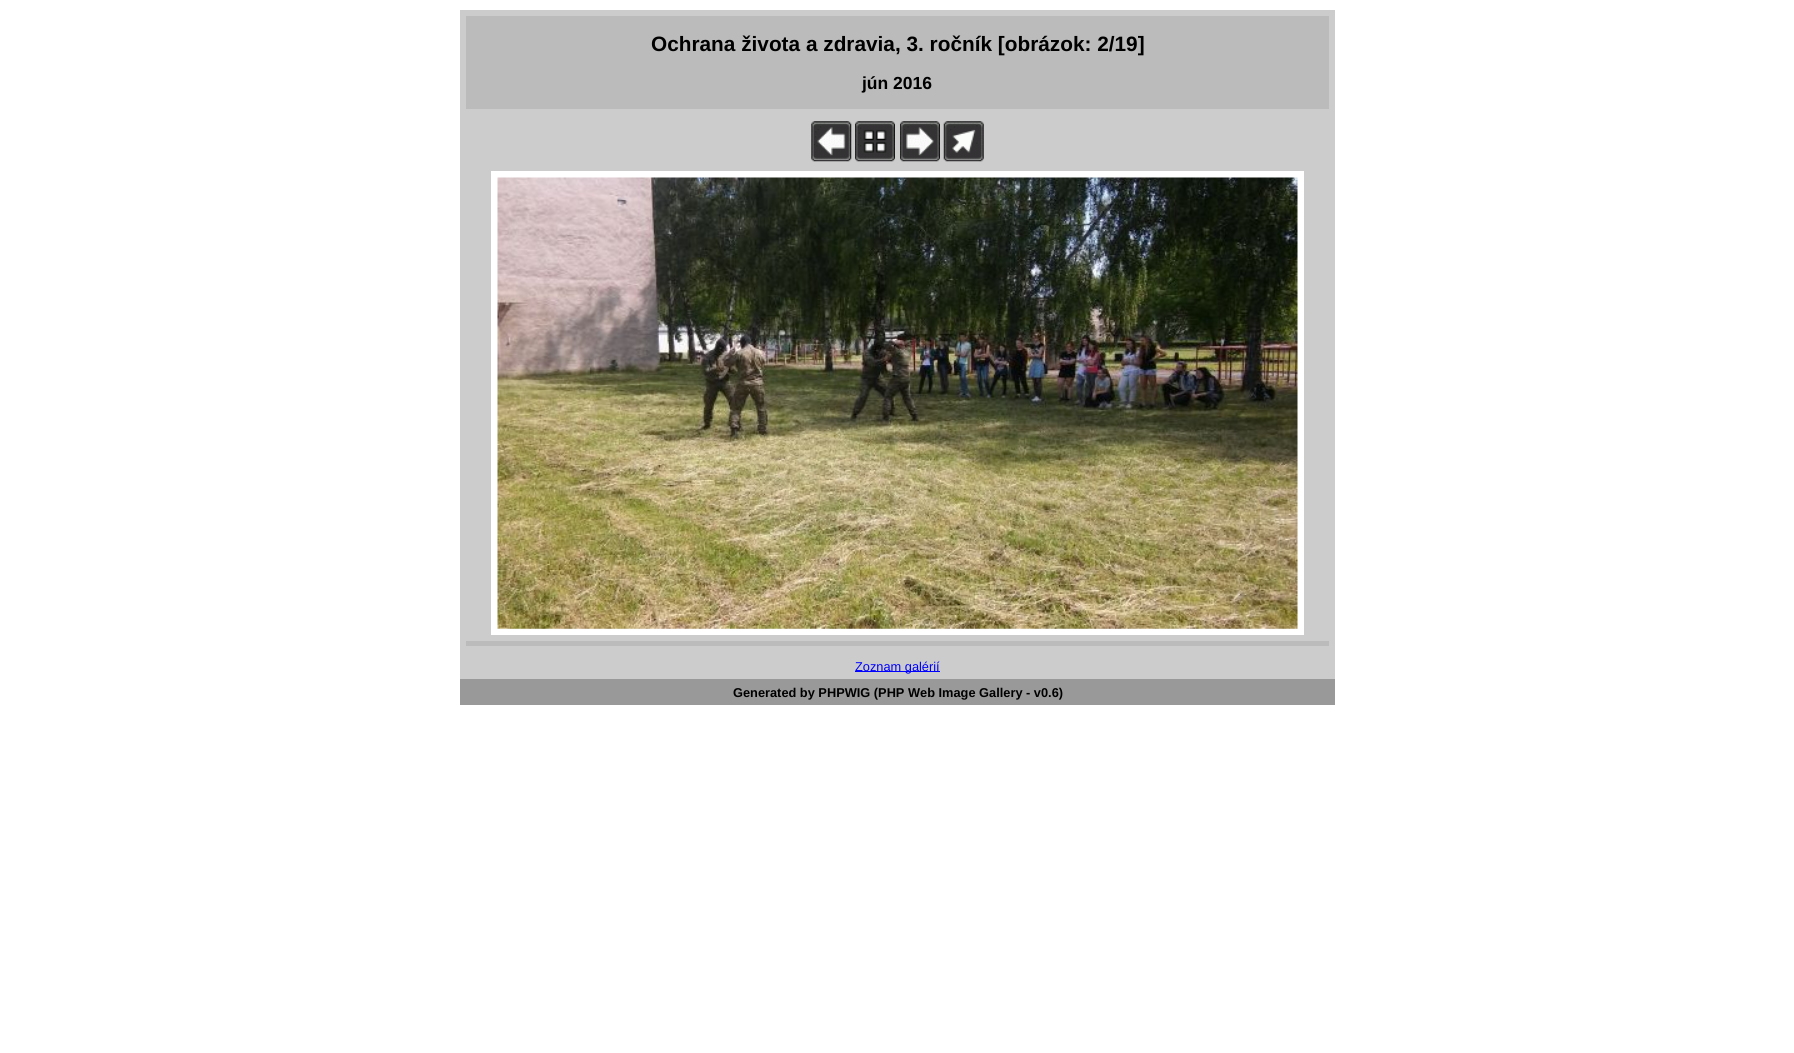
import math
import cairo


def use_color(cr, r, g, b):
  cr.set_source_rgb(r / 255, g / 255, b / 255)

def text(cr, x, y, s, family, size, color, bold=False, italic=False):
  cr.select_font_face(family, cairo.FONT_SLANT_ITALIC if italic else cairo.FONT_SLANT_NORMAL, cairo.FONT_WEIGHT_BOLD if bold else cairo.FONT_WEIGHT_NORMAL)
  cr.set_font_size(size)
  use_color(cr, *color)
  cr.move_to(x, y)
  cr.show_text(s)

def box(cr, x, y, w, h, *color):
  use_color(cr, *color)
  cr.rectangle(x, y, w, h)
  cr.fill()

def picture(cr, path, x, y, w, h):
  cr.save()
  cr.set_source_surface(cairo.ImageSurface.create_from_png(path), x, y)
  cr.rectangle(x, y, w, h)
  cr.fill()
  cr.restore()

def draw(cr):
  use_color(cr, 255, 255, 255)
  cr.paint()
  box(cr, 460, 10, 875, 669, 204, 204, 204)
  box(cr, 466, 16, 863, 93, 187, 187, 187)
  picture(cr, "img_01.png", 811, 121, 41, 41)
  picture(cr, "img_02.png", 855, 121, 40, 41)
  picture(cr, "img_03.png", 900, 121, 40, 41)
  picture(cr, "img_04.png", 943, 121, 41, 41)
  box(cr, 491, 171, 813, 464, 255, 255, 255)
  picture(cr, "img_05.png", 497, 177, 801, 452)
  box(cr, 466, 641, 863, 5, 187, 187, 187)
  box(cr, 855, 671, 85, 1, 0, 0, 255)
  box(cr, 460, 679, 875, 26, 153, 153, 153)
  text(cr, 651, 51, "Ochrana života a zdravia, 3. ročník [obrázok: 2/19]", "Liberation Sans", 20.8, (0, 0, 0), bold=True)
  text(cr, 862, 89, "jún 2016", "Liberation Sans", 17.5, (0, 0, 0), bold=True)
  text(cr, 855, 671, "Zoznam galérií", "Liberation Sans", 12.8, (0, 0, 255))
  text(cr, 733, 697, "Generated by PHPWIG (PHP Web Image Gallery - v0.6)", "Liberation Sans", 12.8, (0, 0, 0), bold=True)


surface = cairo.ImageSurface(cairo.FORMAT_RGB24, 1794, 1053)
cr = cairo.Context(surface)
options = cairo.FontOptions()
options.set_hint_metrics(cairo.HINT_METRICS_OFF)
options.set_hint_style(cairo.HINT_STYLE_NONE)
cr.set_font_options(options)
cr.set_miter_limit(4)
draw(cr)
surface.write_to_png("out.png")
